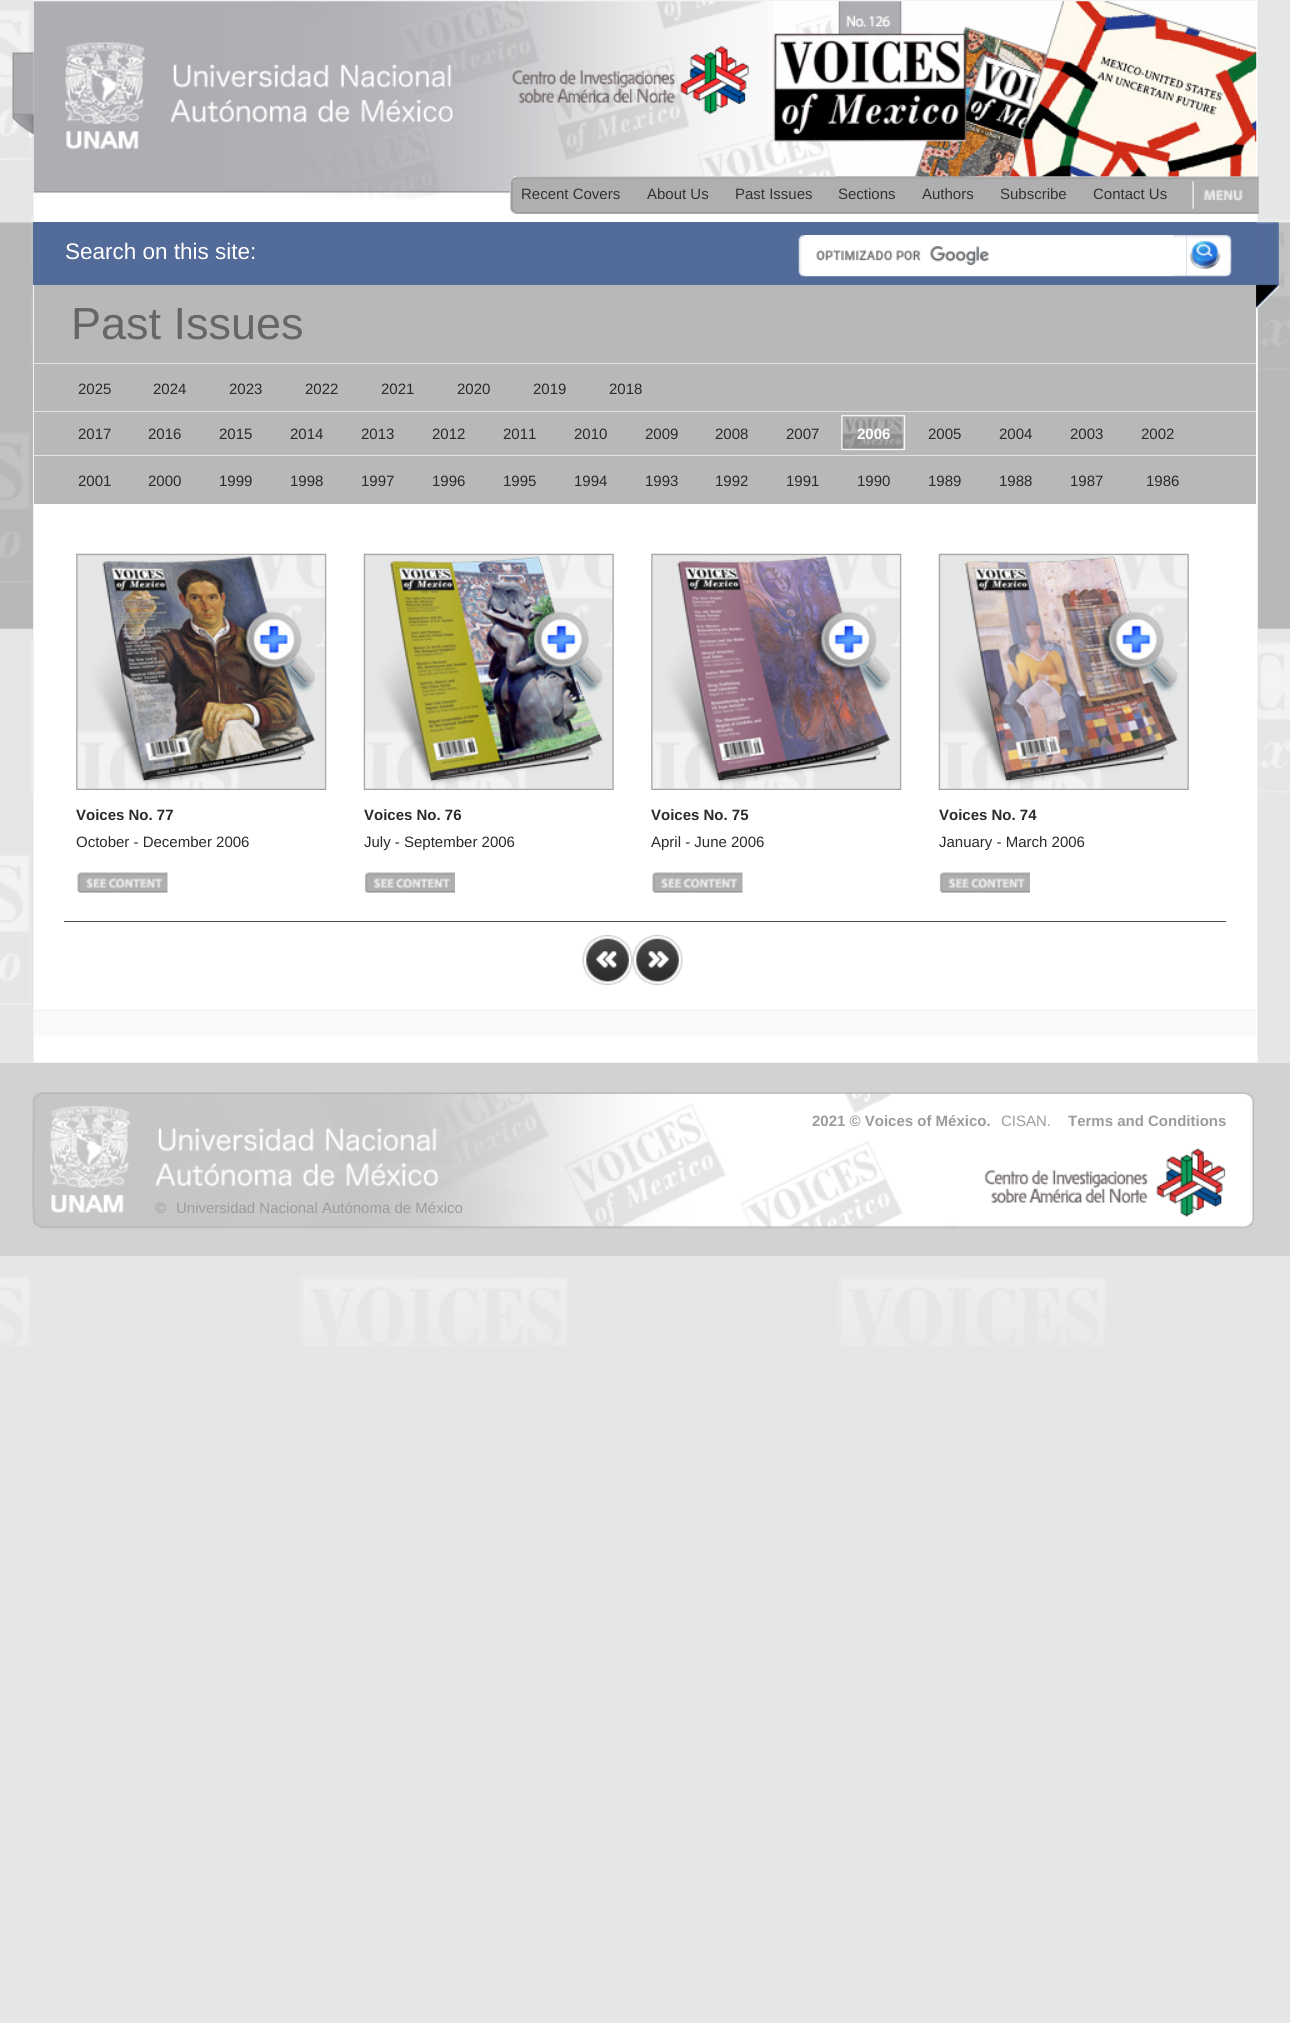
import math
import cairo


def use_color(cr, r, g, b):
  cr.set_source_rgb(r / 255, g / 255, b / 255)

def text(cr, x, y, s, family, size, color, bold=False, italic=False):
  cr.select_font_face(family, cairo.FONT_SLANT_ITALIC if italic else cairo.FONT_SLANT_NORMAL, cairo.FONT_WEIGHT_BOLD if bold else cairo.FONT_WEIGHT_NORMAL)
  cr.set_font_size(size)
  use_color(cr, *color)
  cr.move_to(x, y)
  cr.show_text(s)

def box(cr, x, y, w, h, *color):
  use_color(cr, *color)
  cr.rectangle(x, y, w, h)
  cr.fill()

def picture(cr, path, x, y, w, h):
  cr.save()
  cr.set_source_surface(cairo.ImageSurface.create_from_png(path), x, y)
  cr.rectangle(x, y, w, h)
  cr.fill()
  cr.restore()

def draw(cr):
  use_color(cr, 230, 230, 230)
  cr.paint()
  picture(cr, "img_01.png", 0, 9, 1290, 1337)
  use_color(cr, 255, 255, 255)
  cr.rectangle(33.5, 0.5, 1224, 1062)
  cr.fill_preserve()
  use_color(cr, 242, 242, 242)
  cr.set_line_width(1)
  cr.stroke()
  picture(cr, "img_02.png", 33, 1, 1224, 198)
  picture(cr, "img_03.png", 12, 52, 22, 86)
  picture(cr, "img_04.png", 65, 42, 389, 107)
  picture(cr, "img_05.png", 510, 176, 749, 38)
  box(cr, 34, 285, 1222, 219, 183, 184, 184)
  box(cr, 33, 222, 1224, 63, 83, 107, 153)
  picture(cr, "img_06.png", 1256, 222, 23, 86)
  picture(cr, "img_07.png", 798, 235, 389, 42)
  box(cr, 805, 235, 368, 41, 255, 255, 255)
  picture(cr, "img_08.png", 816, 246, 173, 19)
  picture(cr, "img_09.png", 1186, 235, 46, 42)
  picture(cr, "img_10.png", 1256, 222, 23, 86)
  box(cr, 34, 363, 1222, 1, 226, 226, 226)
  box(cr, 34, 411, 1222, 1, 226, 226, 226)
  picture(cr, "img_11.png", 841, 414, 65, 37)
  box(cr, 34, 455, 1222, 1, 226, 226, 226)
  picture(cr, "img_12.png", 76, 553, 251, 237)
  picture(cr, "img_13.png", 77, 872, 91, 21)
  picture(cr, "img_14.png", 363, 553, 251, 237)
  picture(cr, "img_15.png", 364, 872, 91, 21)
  picture(cr, "img_16.png", 651, 553, 251, 237)
  picture(cr, "img_13.png", 652, 872, 91, 21)
  picture(cr, "img_17.png", 938, 553, 251, 237)
  picture(cr, "img_18.png", 939, 872, 91, 21)
  box(cr, 64, 921, 1162, 1, 75, 75, 75)
  picture(cr, "img_19.png", 582, 935, 51, 50)
  picture(cr, "img_20.png", 632, 935, 51, 50)
  box(cr, 34, 1011, 1222, 25, 250, 250, 250)
  box(cr, 34, 1010, 1222, 1, 241, 241, 241)
  box(cr, 0, 1063, 1290, 193, 210, 210, 210)
  picture(cr, "img_21.png", 32, 1092, 1222, 137)
  text(cr, 521, 199, "Recent Covers", "Liberation Sans", 15, (51, 51, 51))
  text(cr, 647, 199, "About Us", "Liberation Sans", 15, (51, 51, 51))
  text(cr, 735, 199, "Past Issues", "Liberation Sans", 15, (51, 51, 51))
  text(cr, 838, 199, "Sections", "Liberation Sans", 15, (51, 51, 51))
  text(cr, 922, 199, "Authors", "Liberation Sans", 15, (51, 51, 51))
  text(cr, 1000, 199, "Subscribe", "Liberation Sans", 15, (51, 51, 51))
  text(cr, 1093, 199, "Contact Us", "Liberation Sans", 15, (51, 51, 51))
  text(cr, 65, 259, "Search on this site:", "Liberation Sans", 22.5, (255, 255, 255))
  text(cr, 71, 339, "Past Issues", "Liberation Sans", 45, (102, 102, 102))
  text(cr, 78, 394, "2025", "Liberation Sans", 15, (42, 42, 42))
  text(cr, 153, 394, "2024", "Liberation Sans", 15, (42, 42, 42))
  text(cr, 229, 394, "2023", "Liberation Sans", 15, (42, 42, 42))
  text(cr, 305, 394, "2022", "Liberation Sans", 15, (42, 42, 42))
  text(cr, 381, 394, "2021", "Liberation Sans", 15, (42, 42, 42))
  text(cr, 457, 394, "2020", "Liberation Sans", 15, (42, 42, 42))
  text(cr, 533, 394, "2019", "Liberation Sans", 15, (42, 42, 42))
  text(cr, 609, 394, "2018", "Liberation Sans", 15, (42, 42, 42))
  text(cr, 78, 439, "2017", "Liberation Sans", 15, (42, 42, 42))
  text(cr, 148, 439, "2016", "Liberation Sans", 15, (42, 42, 42))
  text(cr, 219, 439, "2015", "Liberation Sans", 15, (42, 42, 42))
  text(cr, 290, 439, "2014", "Liberation Sans", 15, (42, 42, 42))
  text(cr, 361, 439, "2013", "Liberation Sans", 15, (42, 42, 42))
  text(cr, 432, 439, "2012", "Liberation Sans", 15, (42, 42, 42))
  text(cr, 503, 439, "2011", "Liberation Sans", 15, (42, 42, 42))
  text(cr, 574, 439, "2010", "Liberation Sans", 15, (42, 42, 42))
  text(cr, 645, 439, "2009", "Liberation Sans", 15, (42, 42, 42))
  text(cr, 715, 439, "2008", "Liberation Sans", 15, (42, 42, 42))
  text(cr, 786, 439, "2007", "Liberation Sans", 15, (42, 42, 42))
  text(cr, 857, 439, "2006", "Liberation Sans", 15, (255, 255, 255), bold=True)
  text(cr, 928, 439, "2005", "Liberation Sans", 15, (42, 42, 42))
  text(cr, 999, 439, "2004", "Liberation Sans", 15, (42, 42, 42))
  text(cr, 1070, 439, "2003", "Liberation Sans", 15, (42, 42, 42))
  text(cr, 1141, 439, "2002", "Liberation Sans", 15, (42, 42, 42))
  text(cr, 78, 486, "2001", "Liberation Sans", 15, (42, 42, 42))
  text(cr, 148, 486, "2000", "Liberation Sans", 15, (42, 42, 42))
  text(cr, 219, 486, "1999", "Liberation Sans", 15, (42, 42, 42))
  text(cr, 290, 486, "1998", "Liberation Sans", 15, (42, 42, 42))
  text(cr, 361, 486, "1997", "Liberation Sans", 15, (42, 42, 42))
  text(cr, 432, 486, "1996", "Liberation Sans", 15, (42, 42, 42))
  text(cr, 503, 486, "1995", "Liberation Sans", 15, (42, 42, 42))
  text(cr, 574, 486, "1994", "Liberation Sans", 15, (42, 42, 42))
  text(cr, 645, 486, "1993", "Liberation Sans", 15, (42, 42, 42))
  text(cr, 715, 486, "1992", "Liberation Sans", 15, (42, 42, 42))
  text(cr, 786, 486, "1991", "Liberation Sans", 15, (42, 42, 42))
  text(cr, 857, 486, "1990", "Liberation Sans", 15, (42, 42, 42))
  text(cr, 928, 486, "1989", "Liberation Sans", 15, (42, 42, 42))
  text(cr, 999, 486, "1988", "Liberation Sans", 15, (42, 42, 42))
  text(cr, 1070, 486, "1987", "Liberation Sans", 15, (42, 42, 42))
  text(cr, 1146, 486, "1986", "Liberation Sans", 15, (42, 42, 42))
  text(cr, 76, 820, "Voices No. 77", "Liberation Sans", 15, (42, 42, 42), bold=True)
  text(cr, 76, 847, "October - December 2006", "Liberation Sans", 15, (42, 42, 42))
  text(cr, 364, 820, "Voices No. 76", "Liberation Sans", 15, (42, 42, 42), bold=True)
  text(cr, 364, 847, "July - September 2006", "Liberation Sans", 15, (42, 42, 42))
  text(cr, 651, 820, "Voices No. 75", "Liberation Sans", 15, (42, 42, 42), bold=True)
  text(cr, 651, 847, "April - June 2006", "Liberation Sans", 15, (42, 42, 42))
  text(cr, 939, 820, "Voices No. 74", "Liberation Sans", 15, (42, 42, 42), bold=True)
  text(cr, 939, 847, "January - March 2006", "Liberation Sans", 15, (42, 42, 42))
  text(cr, 812, 1126, "2021 © Voices of México.", "Liberation Sans", 15, (156, 156, 156), bold=True)
  text(cr, 1001, 1126, "CISAN.", "Liberation Sans", 15, (156, 156, 156))
  text(cr, 1068, 1126, "Terms and Conditions", "Liberation Sans", 15, (156, 156, 156), bold=True)
  text(cr, 155, 1213, "©", "Liberation Sans", 15, (156, 156, 156))
  text(cr, 176, 1213, "Universidad Nacional Autónoma de México", "Liberation Sans", 15, (156, 156, 156))


surface = cairo.ImageSurface(cairo.FORMAT_RGB24, 1290, 2023)
cr = cairo.Context(surface)
options = cairo.FontOptions()
options.set_hint_metrics(cairo.HINT_METRICS_OFF)
options.set_hint_style(cairo.HINT_STYLE_NONE)
cr.set_font_options(options)
cr.set_miter_limit(4)
draw(cr)
surface.write_to_png("out.png")
